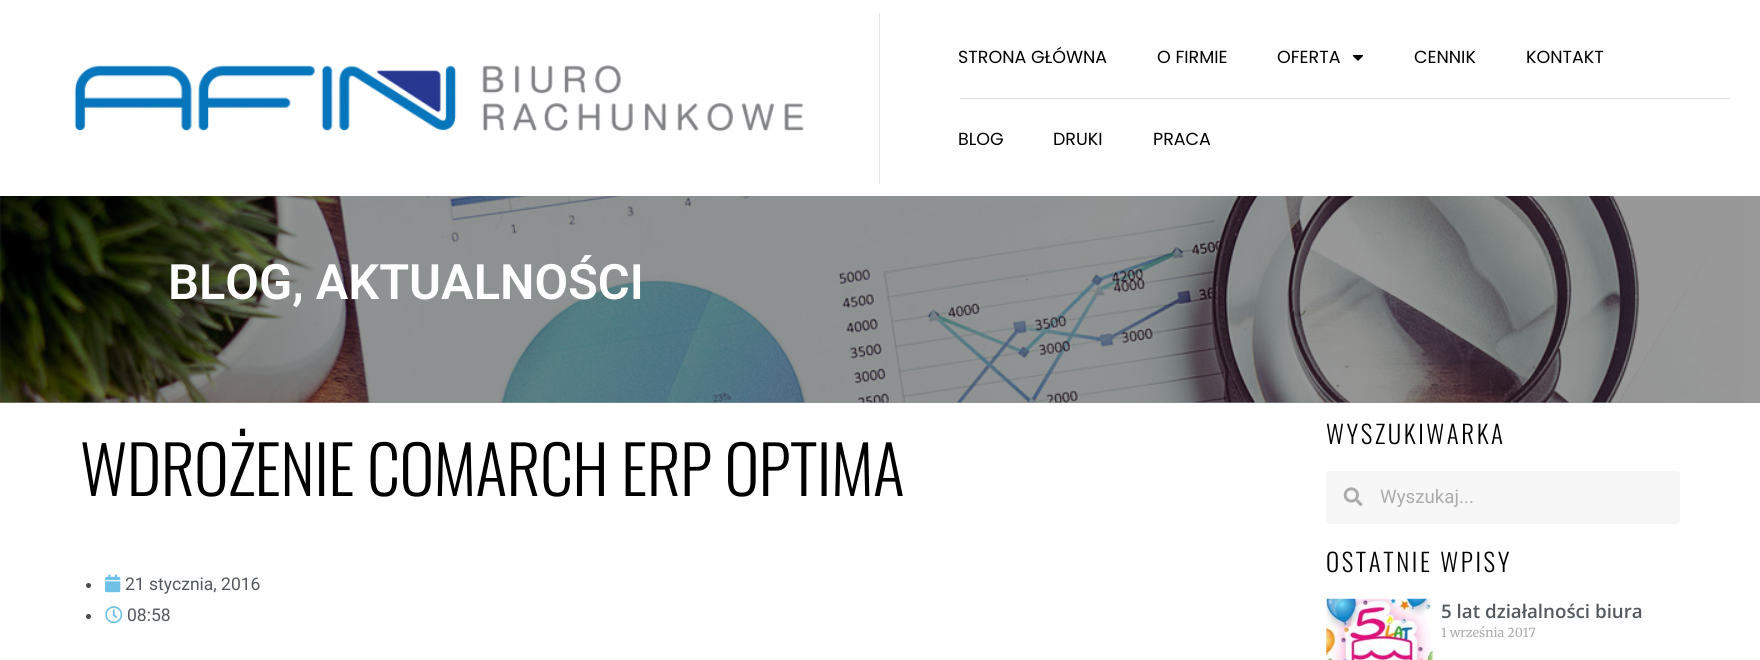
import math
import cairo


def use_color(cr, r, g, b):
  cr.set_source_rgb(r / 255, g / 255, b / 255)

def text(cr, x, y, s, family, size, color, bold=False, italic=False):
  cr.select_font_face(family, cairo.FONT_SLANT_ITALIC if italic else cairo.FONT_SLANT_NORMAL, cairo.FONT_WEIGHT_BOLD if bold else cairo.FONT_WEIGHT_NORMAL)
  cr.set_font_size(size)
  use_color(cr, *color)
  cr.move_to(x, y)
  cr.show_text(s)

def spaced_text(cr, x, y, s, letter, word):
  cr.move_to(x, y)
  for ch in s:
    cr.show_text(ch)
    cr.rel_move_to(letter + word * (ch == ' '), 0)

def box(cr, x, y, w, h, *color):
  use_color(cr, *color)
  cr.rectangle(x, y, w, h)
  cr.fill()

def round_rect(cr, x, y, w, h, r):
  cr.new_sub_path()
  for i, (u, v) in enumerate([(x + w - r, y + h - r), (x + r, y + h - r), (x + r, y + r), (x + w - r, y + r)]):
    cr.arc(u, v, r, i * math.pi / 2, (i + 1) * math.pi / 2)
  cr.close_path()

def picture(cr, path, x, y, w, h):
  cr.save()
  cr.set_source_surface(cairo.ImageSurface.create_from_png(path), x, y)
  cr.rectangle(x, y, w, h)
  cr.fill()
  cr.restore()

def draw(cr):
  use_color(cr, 255, 255, 255)
  cr.paint()
  box(cr, 0, 196, 1760, 207, 153, 153, 153)
  box(cr, 879, 13, 1, 171, 229, 229, 229)
  picture(cr, "img_01.png", 74, 65, 730, 67)
  picture(cr, "img_02.png", 1352, 55, 11, 6)
  box(cr, 960, 98, 770, 1, 221, 221, 221)
  picture(cr, "img_03.png", 0, 196, 1744, 207)
  use_color(cr, 74, 74, 74)
  cr.arc(88.5, 585.5, 2.5, 0, 2 * math.pi)
  cr.fill()
  picture(cr, "img_04.png", 105, 574, 16, 19)
  cr.arc(88.5, 616.5, 2.5, 0, 2 * math.pi)
  cr.fill()
  picture(cr, "img_05.png", 105, 606, 18, 18)
  use_color(cr, 247, 247, 247)
  round_rect(cr, 1326, 471, 354, 53, 4)
  cr.fill()
  picture(cr, "img_06.png", 1343, 487, 20, 19)
  picture(cr, "img_07.png", 1326, 598, 107, 62)
  text(cr, 958, 63, "STRONA GŁÓWNA", "Poppins", 17.5, (0, 0, 0))
  text(cr, 1157, 63, "O FIRMIE", "Poppins", 17.5, (0, 0, 0))
  text(cr, 1277, 63, "OFERTA", "Poppins", 17.5, (0, 0, 0))
  text(cr, 1414, 63, "CENNIK", "Poppins", 17.5, (0, 0, 0))
  text(cr, 1526, 63, "KONTAKT", "Poppins", 17.5, (0, 0, 0))
  text(cr, 958, 145, "BLOG", "Poppins", 17.5, (0, 0, 0))
  text(cr, 1053, 145, "DRUKI", "Poppins", 17.5, (0, 0, 0))
  text(cr, 1153, 145, "PRACA", "Poppins", 17.5, (0, 0, 0))
  text(cr, 168, 299, "BLOG, AKTUALNOŚCI", "Roboto SemiBold", 48.75, (255, 255, 255))
  cr.select_font_face("Oswald Light")
  cr.set_font_size(66.25)
  use_color(cr, 0, 0, 0)
  spaced_text(cr, 80, 496, "WDROŻENIE COMARCH ERP OPTIMA", -0.6, 0)
  text(cr, 125, 590, "21 stycznia, 2016", "Roboto", 17.5, (84, 89, 95))
  text(cr, 127, 621, "08:58", "Roboto", 17.5, (84, 89, 95))
  cr.select_font_face("Oswald Light")
  cr.set_font_size(25)
  use_color(cr, 0, 0, 0)
  spaced_text(cr, 1326, 444, "WYSZUKIWARKA", 2.6, 0)
  text(cr, 1380, 503, "Wyszukaj...", "Roboto", 18.75, (172, 172, 172))
  cr.select_font_face("Oswald Light")
  cr.set_font_size(25)
  use_color(cr, 0, 0, 0)
  spaced_text(cr, 1326, 572, "OSTATNIE WPISY", 2.6, 0)
  text(cr, 1441, 618, "5 lat działalności biura", "Open Sans SemiBold", 18.75, (84, 89, 95))
  text(cr, 1441, 637, "1 września 2017", "Merriweather", 12.5, (172, 172, 172))


surface = cairo.ImageSurface(cairo.FORMAT_RGB24, 1760, 660)
cr = cairo.Context(surface)
options = cairo.FontOptions()
options.set_hint_metrics(cairo.HINT_METRICS_OFF)
options.set_hint_style(cairo.HINT_STYLE_NONE)
cr.set_font_options(options)
cr.set_miter_limit(4)
draw(cr)
surface.write_to_png("out.png")
